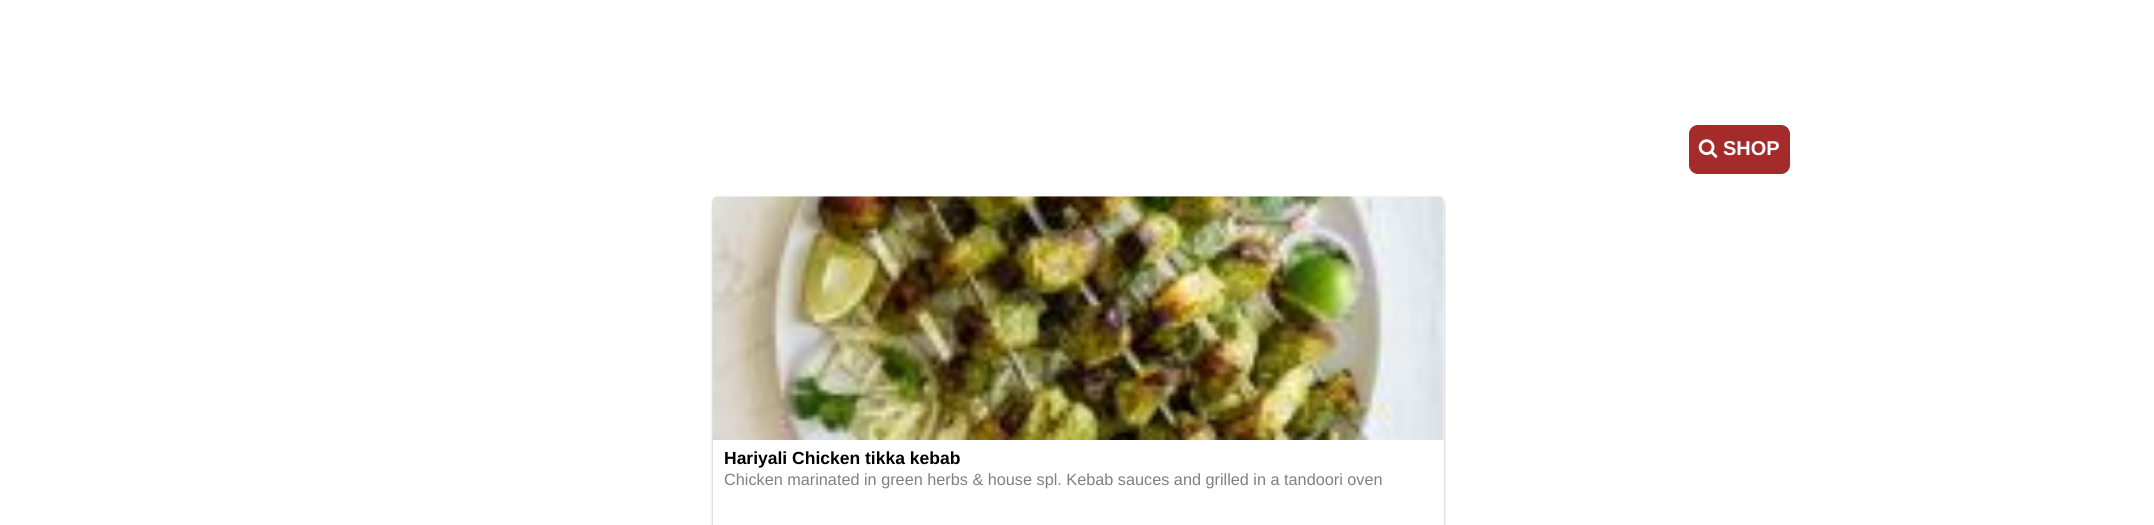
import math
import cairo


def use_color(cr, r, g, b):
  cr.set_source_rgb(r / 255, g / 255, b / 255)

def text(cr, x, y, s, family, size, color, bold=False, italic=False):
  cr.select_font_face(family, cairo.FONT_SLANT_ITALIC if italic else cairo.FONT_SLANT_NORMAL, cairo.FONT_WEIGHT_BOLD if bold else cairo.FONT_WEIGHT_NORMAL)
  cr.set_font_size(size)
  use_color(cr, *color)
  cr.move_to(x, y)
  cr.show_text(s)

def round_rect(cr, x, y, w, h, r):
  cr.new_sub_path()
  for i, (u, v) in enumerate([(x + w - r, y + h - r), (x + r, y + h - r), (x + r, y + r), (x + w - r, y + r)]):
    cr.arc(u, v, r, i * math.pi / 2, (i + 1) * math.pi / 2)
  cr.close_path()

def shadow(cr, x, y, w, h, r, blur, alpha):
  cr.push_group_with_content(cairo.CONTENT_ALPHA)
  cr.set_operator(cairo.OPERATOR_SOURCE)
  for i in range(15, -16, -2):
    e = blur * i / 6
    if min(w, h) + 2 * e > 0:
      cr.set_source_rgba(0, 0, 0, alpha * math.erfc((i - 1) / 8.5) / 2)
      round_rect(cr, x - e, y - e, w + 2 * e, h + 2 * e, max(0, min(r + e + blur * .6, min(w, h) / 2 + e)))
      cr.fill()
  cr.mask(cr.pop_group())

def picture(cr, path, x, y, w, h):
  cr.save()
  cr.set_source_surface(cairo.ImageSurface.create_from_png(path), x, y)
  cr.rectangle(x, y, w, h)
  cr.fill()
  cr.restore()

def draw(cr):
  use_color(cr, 255, 255, 255)
  cr.paint()
  use_color(cr, 165, 42, 42)
  round_rect(cr, 1689.5, 125.5, 100, 48, 8.5)
  cr.fill_preserve()
  cr.set_line_width(1)
  cr.stroke()
  picture(cr, "img_01.png", 1698, 139, 20, 19)
  use_color(cr, 0, 0, 0)
  shadow(cr, 713, 198, 731, 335, 5, 1, 0.24)
  shadow(cr, 713, 198, 731, 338, 5, 2, 0.12)
  use_color(cr, 255, 255, 255)
  round_rect(cr, 713, 196, 731, 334, 5)
  cr.fill()
  picture(cr, "img_02.png", 712, 196, 732, 244)
  text(cr, 1723, 155, "SHOP", "Liberation Sans", 20, (255, 255, 255), bold=True)
  text(cr, 724, 464, "Hariyali Chicken tikka kebab", "Liberation Sans", 17.5, (0, 0, 0), bold=True)
  text(cr, 724, 485, "Chicken marinated in green herbs & house spl. Kebab sauces and grilled in a tandoori oven", "Liberation Sans", 16.25, (128, 128, 128))


surface = cairo.ImageSurface(cairo.FORMAT_RGB24, 2154, 525)
cr = cairo.Context(surface)
options = cairo.FontOptions()
options.set_hint_metrics(cairo.HINT_METRICS_OFF)
options.set_hint_style(cairo.HINT_STYLE_NONE)
cr.set_font_options(options)
cr.set_miter_limit(4)
draw(cr)
surface.write_to_png("out.png")
